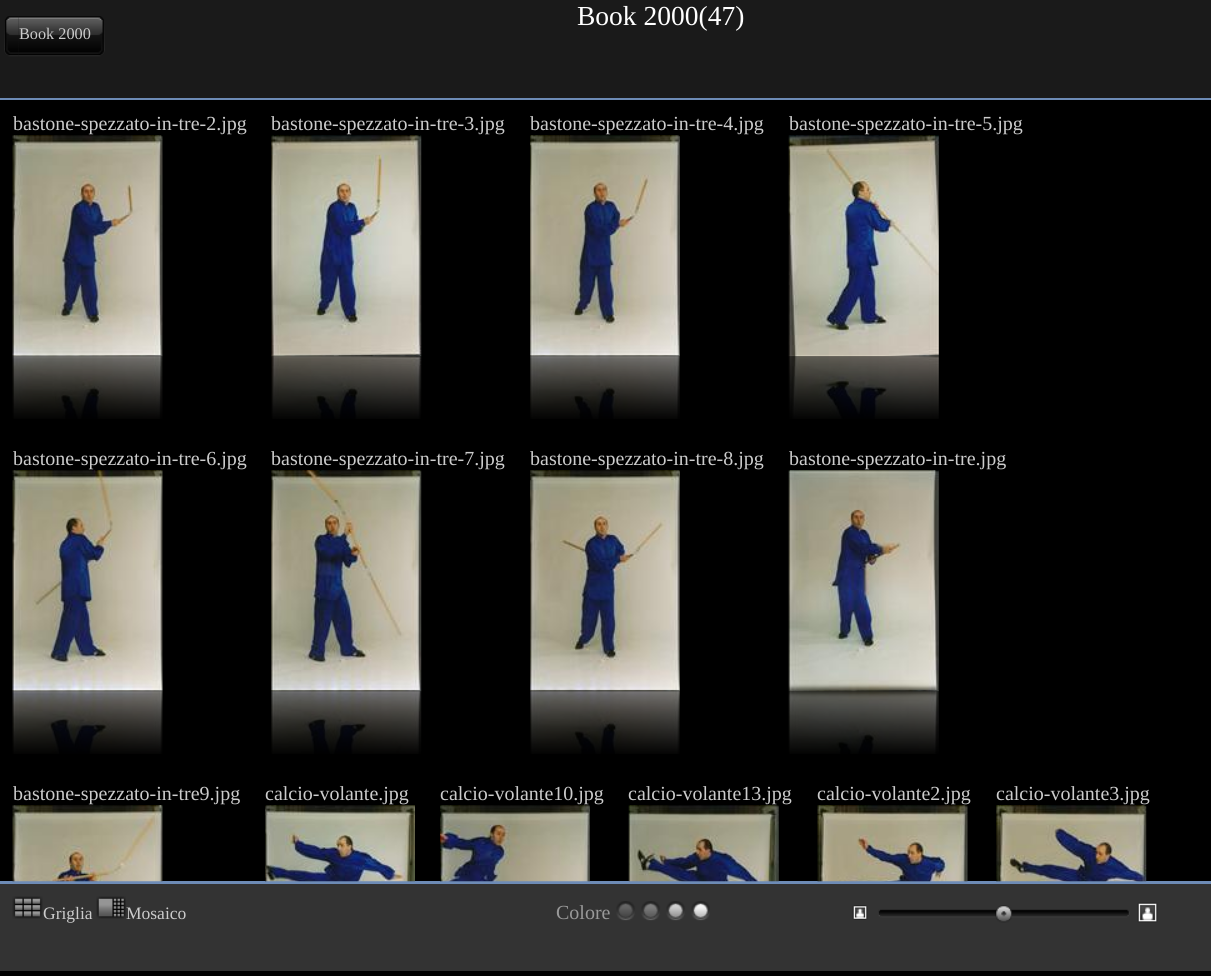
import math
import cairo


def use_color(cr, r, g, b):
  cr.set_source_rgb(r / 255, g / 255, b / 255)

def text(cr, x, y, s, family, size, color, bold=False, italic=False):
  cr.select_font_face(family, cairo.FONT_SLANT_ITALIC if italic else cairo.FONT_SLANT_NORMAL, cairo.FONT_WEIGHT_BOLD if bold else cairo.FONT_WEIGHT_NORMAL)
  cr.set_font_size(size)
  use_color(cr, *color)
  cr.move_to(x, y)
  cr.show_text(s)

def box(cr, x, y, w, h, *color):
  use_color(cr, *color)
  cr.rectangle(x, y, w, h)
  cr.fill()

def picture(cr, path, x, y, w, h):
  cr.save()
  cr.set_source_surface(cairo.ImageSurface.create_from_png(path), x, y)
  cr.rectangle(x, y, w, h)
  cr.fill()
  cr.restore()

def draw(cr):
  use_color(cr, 0, 0, 0)
  cr.paint()
  box(cr, 0, 0, 1211, 98, 26, 26, 26)
  box(cr, 0, 98, 1211, 2, 109, 139, 182)
  picture(cr, "img_01.png", 4, 16, 15, 41)
  picture(cr, "img_02.png", 18, 16, 87, 41)
  picture(cr, "img_03.png", 12, 135, 151, 222)
  picture(cr, "img_04.png", 12, 356, 151, 63)
  picture(cr, "img_05.png", 271, 135, 151, 222)
  picture(cr, "img_06.png", 271, 356, 151, 63)
  picture(cr, "img_07.png", 530, 135, 150, 222)
  picture(cr, "img_08.png", 530, 356, 150, 63)
  picture(cr, "img_09.png", 788, 135, 151, 222)
  picture(cr, "img_10.png", 788, 356, 151, 63)
  picture(cr, "img_11.png", 12, 470, 151, 222)
  picture(cr, "img_12.png", 12, 691, 151, 63)
  picture(cr, "img_13.png", 271, 470, 151, 222)
  picture(cr, "img_14.png", 271, 691, 151, 63)
  picture(cr, "img_15.png", 530, 470, 150, 222)
  picture(cr, "img_16.png", 530, 691, 150, 63)
  picture(cr, "img_17.png", 788, 470, 151, 222)
  picture(cr, "img_18.png", 788, 691, 151, 63)
  box(cr, 0, 881, 1211, 3, 109, 139, 182)
  picture(cr, "img_19.png", 12, 805, 151, 77)
  picture(cr, "img_20.png", 265, 805, 150, 77)
  picture(cr, "img_21.png", 440, 805, 150, 77)
  picture(cr, "img_22.png", 628, 805, 151, 77)
  picture(cr, "img_23.png", 817, 805, 151, 77)
  picture(cr, "img_24.png", 996, 805, 151, 77)
  box(cr, 0, 884, 1211, 87, 51, 51, 51)
  picture(cr, "img_25.png", 12, 896, 31, 23)
  picture(cr, "img_26.png", 96, 896, 30, 23)
  picture(cr, "img_27.png", 616, 901, 94, 20)
  picture(cr, "img_28.png", 852, 905, 16, 15)
  picture(cr, "img_29.png", 878, 909, 252, 9)
  picture(cr, "img_30.png", 995, 905, 17, 18)
  picture(cr, "img_31.png", 1137, 902, 21, 21)
  text(cr, 577, 25, "Book 2000(47)", "Liberation Serif", 27.5, (255, 255, 255))
  text(cr, 19, 39, "Book 2000", "Liberation Serif", 16.25, (204, 204, 204))
  text(cr, 13, 130, "bastone-spezzato-in-tre-2.jpg", "Liberation Serif", 20, (204, 204, 204))
  text(cr, 271, 130, "bastone-spezzato-in-tre-3.jpg", "Liberation Serif", 20, (204, 204, 204))
  text(cr, 530, 130, "bastone-spezzato-in-tre-4.jpg", "Liberation Serif", 20, (204, 204, 204))
  text(cr, 789, 130, "bastone-spezzato-in-tre-5.jpg", "Liberation Serif", 20, (204, 204, 204))
  text(cr, 13, 465, "bastone-spezzato-in-tre-6.jpg", "Liberation Serif", 20, (204, 204, 204))
  text(cr, 271, 465, "bastone-spezzato-in-tre-7.jpg", "Liberation Serif", 20, (204, 204, 204))
  text(cr, 530, 465, "bastone-spezzato-in-tre-8.jpg", "Liberation Serif", 20, (204, 204, 204))
  text(cr, 789, 465, "bastone-spezzato-in-tre.jpg", "Liberation Serif", 20, (204, 204, 204))
  text(cr, 13, 800, "bastone-spezzato-in-tre9.jpg", "Liberation Serif", 20, (204, 204, 204))
  text(cr, 265, 800, "calcio-volante.jpg", "Liberation Serif", 20, (204, 204, 204))
  text(cr, 440, 800, "calcio-volante10.jpg", "Liberation Serif", 20, (204, 204, 204))
  text(cr, 628, 800, "calcio-volante13.jpg", "Liberation Serif", 20, (204, 204, 204))
  text(cr, 817, 800, "calcio-volante2.jpg", "Liberation Serif", 20, (204, 204, 204))
  text(cr, 996, 800, "calcio-volante3.jpg", "Liberation Serif", 20, (204, 204, 204))
  text(cr, 43, 919, "Griglia", "Liberation Serif", 17.5, (204, 204, 204))
  text(cr, 126, 919, "Mosaico", "Liberation Serif", 17.5, (204, 204, 204))
  text(cr, 556, 919, "Colore", "Liberation Serif", 20, (153, 153, 153))


surface = cairo.ImageSurface(cairo.FORMAT_RGB24, 1211, 976)
cr = cairo.Context(surface)
options = cairo.FontOptions()
options.set_hint_metrics(cairo.HINT_METRICS_OFF)
options.set_hint_style(cairo.HINT_STYLE_NONE)
cr.set_font_options(options)
cr.set_miter_limit(4)
draw(cr)
surface.write_to_png("out.png")
